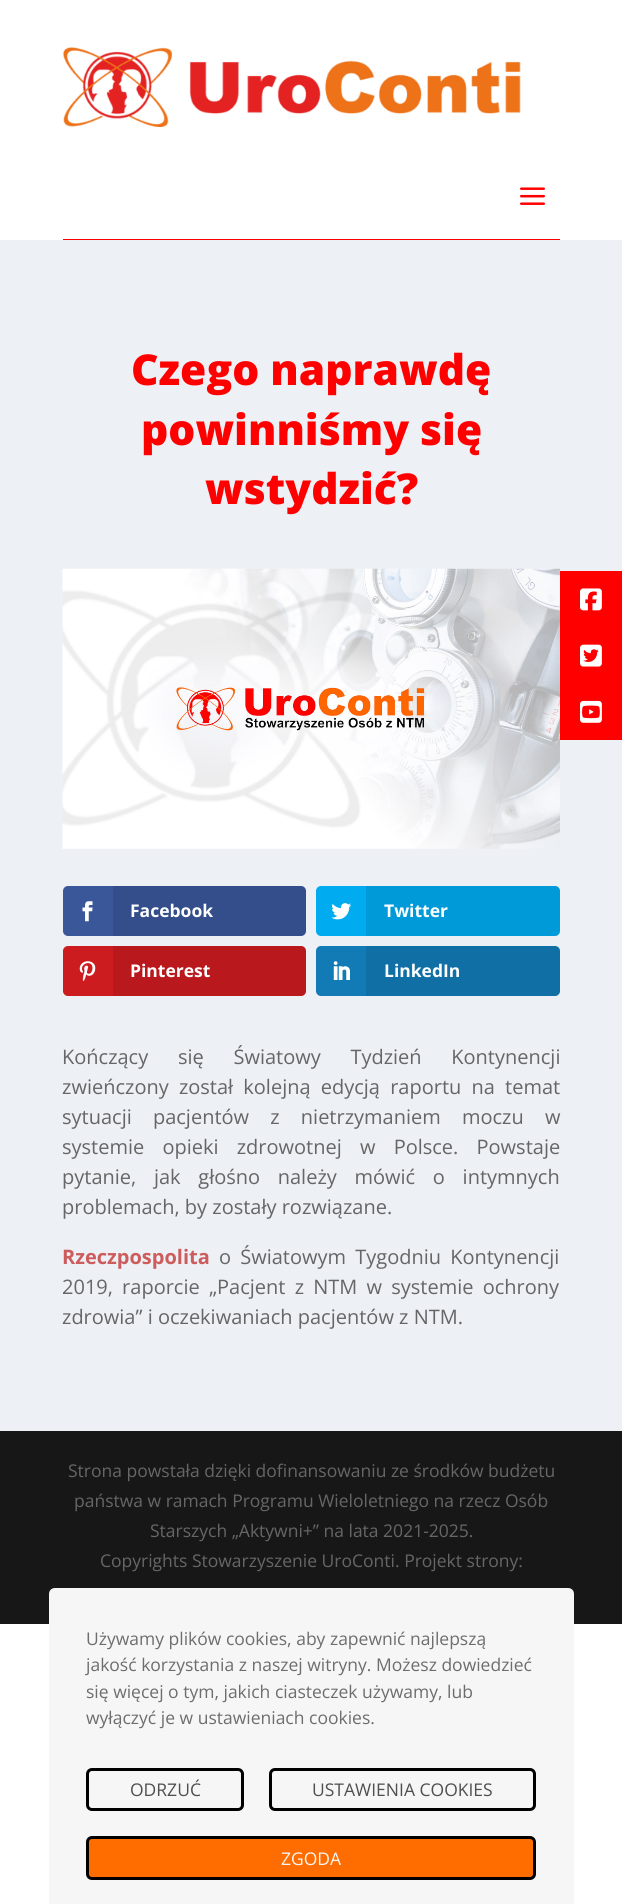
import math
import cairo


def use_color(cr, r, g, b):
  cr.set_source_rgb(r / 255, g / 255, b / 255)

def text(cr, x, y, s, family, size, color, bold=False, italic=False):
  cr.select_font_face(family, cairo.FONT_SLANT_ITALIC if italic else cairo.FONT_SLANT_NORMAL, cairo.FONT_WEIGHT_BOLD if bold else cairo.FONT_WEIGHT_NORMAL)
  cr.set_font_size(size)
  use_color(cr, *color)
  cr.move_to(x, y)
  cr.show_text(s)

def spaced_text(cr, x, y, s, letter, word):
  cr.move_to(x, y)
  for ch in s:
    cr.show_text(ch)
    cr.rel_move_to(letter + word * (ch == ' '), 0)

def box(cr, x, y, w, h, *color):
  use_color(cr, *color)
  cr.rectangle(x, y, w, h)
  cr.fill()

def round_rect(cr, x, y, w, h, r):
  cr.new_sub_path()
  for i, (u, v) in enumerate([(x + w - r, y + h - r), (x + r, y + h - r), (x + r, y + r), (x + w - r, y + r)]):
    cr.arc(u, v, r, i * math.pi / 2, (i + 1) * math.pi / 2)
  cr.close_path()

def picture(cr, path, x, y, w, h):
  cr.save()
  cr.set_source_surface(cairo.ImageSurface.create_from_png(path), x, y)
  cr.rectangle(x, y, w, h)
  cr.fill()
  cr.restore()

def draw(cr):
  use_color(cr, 255, 255, 255)
  cr.paint()
  picture(cr, "img_01.png", 62, 47, 459, 80)
  picture(cr, "img_02.png", 520, 187, 25, 18)
  box(cr, 63, 239, 497, 1, 255, 0, 0)
  box(cr, 0, 240, 622, 1191, 237, 240, 245)
  picture(cr, "img_03.png", 62, 568, 498, 281)
  use_color(cr, 58, 87, 154)
  round_rect(cr, 63, 886, 243, 50, 5)
  cr.fill()
  picture(cr, "img_04.png", 82, 901, 11, 21)
  cr.set_source_rgba(0, 0, 0, 0.1)
  cr.new_path()
  cr.move_to(113, 886)
  cr.line_to(301, 886)
  cr.curve_to(304, 886, 306, 888, 306, 891)
  cr.line_to(306, 931)
  cr.curve_to(306, 934, 304, 936, 301, 936)
  cr.line_to(113, 936)
  cr.close_path()
  cr.fill()
  use_color(cr, 0, 171, 240)
  round_rect(cr, 316, 886, 244, 50, 5)
  cr.fill()
  picture(cr, "img_05.png", 331, 903, 21, 17)
  cr.set_source_rgba(0, 0, 0, 0.1)
  cr.new_path()
  cr.move_to(366, 886)
  cr.line_to(555, 886)
  cr.curve_to(558, 886, 560, 888, 560, 891)
  cr.line_to(560, 931)
  cr.curve_to(560, 934, 558, 936, 555, 936)
  cr.line_to(366, 936)
  cr.close_path()
  cr.fill()
  use_color(cr, 205, 28, 31)
  round_rect(cr, 63, 946, 243, 50, 5)
  cr.fill()
  picture(cr, "img_06.png", 79, 961, 17, 21)
  cr.set_source_rgba(0, 0, 0, 0.1)
  cr.new_path()
  cr.move_to(113, 946)
  cr.line_to(301, 946)
  cr.curve_to(304, 946, 306, 948, 306, 951)
  cr.line_to(306, 991)
  cr.curve_to(306, 994, 304, 996, 301, 996)
  cr.line_to(113, 996)
  cr.close_path()
  cr.fill()
  use_color(cr, 18, 123, 182)
  round_rect(cr, 316, 946, 244, 50, 5)
  cr.fill()
  picture(cr, "img_07.png", 333, 961, 17, 19)
  cr.set_source_rgba(0, 0, 0, 0.1)
  cr.new_path()
  cr.move_to(366, 946)
  cr.line_to(555, 946)
  cr.curve_to(558, 946, 560, 948, 560, 951)
  cr.line_to(560, 991)
  cr.curve_to(560, 994, 558, 996, 555, 996)
  cr.line_to(366, 996)
  cr.close_path()
  cr.fill()
  box(cr, 0, 1431, 622, 193, 23, 23, 23)
  box(cr, 560, 571, 62, 169, 254, 0, 0)
  picture(cr, "img_08.png", 580, 588, 22, 23)
  picture(cr, "img_09.png", 580, 644, 22, 23)
  picture(cr, "img_10.png", 580, 700, 22, 23)
  use_color(cr, 246, 246, 246)
  cr.new_path()
  cr.move_to(55, 1588)
  cr.line_to(568, 1588)
  cr.curve_to(571.5, 1588, 574, 1590.5, 574, 1594)
  cr.line_to(574, 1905)
  cr.line_to(49, 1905)
  cr.line_to(49, 1594)
  cr.curve_to(49, 1590.5, 51.5, 1588, 55, 1588)
  cr.close_path()
  cr.fill()
  round_rect(cr, 87.5, 1769.5, 155, 40, 4.5)
  use_color(cr, 0, 0, 0)
  cr.set_line_width(3)
  cr.stroke()
  round_rect(cr, 270.5, 1769.5, 264, 40, 4.5)
  cr.stroke()
  use_color(cr, 255, 109, 0)
  round_rect(cr, 87.5, 1837.5, 447, 41, 4.5)
  cr.fill_preserve()
  use_color(cr, 0, 0, 0)
  cr.stroke()
  text(cr, 131, 385, "Czego naprawdę", "Open Sans ExtraBold", 42.5, (255, 0, 0))
  text(cr, 141, 445, "powinniśmy się", "Open Sans ExtraBold", 42.5, (255, 0, 0))
  text(cr, 205, 504, "wstydzić?", "Open Sans ExtraBold", 42.5, (255, 0, 0))
  text(cr, 130, 917, "Facebook", "Open Sans", 17.5, (255, 255, 255), bold=True)
  text(cr, 384, 917, "Twitter", "Open Sans", 17.5, (255, 255, 255), bold=True)
  text(cr, 130, 977, "Pinterest", "Open Sans", 17.5, (255, 255, 255), bold=True)
  text(cr, 384, 977, "LinkedIn", "Open Sans", 17.5, (255, 255, 255), bold=True)
  cr.select_font_face("Open Sans")
  cr.set_font_size(20)
  use_color(cr, 102, 102, 102)
  spaced_text(cr, 62, 1064, "Kończący się Światowy Tydzień Kontynencji", 0, 24.5)
  spaced_text(cr, 62, 1094, "zwieńczony został kolejną edycją raportu na temat", 0, 5)
  spaced_text(cr, 62, 1124, "sytuacji pacjentów z nietrzymaniem moczu w", 0, 16)
  spaced_text(cr, 62, 1154, "systemie opieki zdrowotnej w Polsce. Powstaje", 0, 13)
  spaced_text(cr, 62, 1184, "pytanie, jak głośno należy mówić o intymnych", 0, 12.5)
  text(cr, 62, 1214, "problemach, by zostały rozwiązane.", "Open Sans", 20, (102, 102, 102))
  text(cr, 62, 1264, "Rzeczpospolita", "Open Sans", 20, (205, 92, 92), bold=True)
  cr.select_font_face("Open Sans")
  use_color(cr, 102, 102, 102)
  spaced_text(cr, 219, 1264, "o Światowym Tygodniu Kontynencji", 0, 4)
  spaced_text(cr, 62, 1294, "2019, raporcie „Pacjent z NTM w systemie ochrony", 0, 4)
  text(cr, 62, 1324, "zdrowia” i oczekiwaniach pacjentów z NTM.", "Open Sans", 20, (102, 102, 102))
  text(cr, 68, 1477, "Strona powstała dzięki dofinansowaniu ze środków budżetu", "Open Sans", 17.5, (102, 102, 102))
  text(cr, 74, 1507, "państwa w ramach Programu Wieloletniego na rzecz Osób", "Open Sans", 17.5, (102, 102, 102))
  text(cr, 150, 1537, "Starszych „Aktywni+” na lata 2021-2025.", "Open Sans", 17.5, (102, 102, 102))
  text(cr, 100, 1567, "Copyrights Stowarzyszenie UroConti. Projekt strony:", "Open Sans", 17.5, (102, 102, 102))
  text(cr, 86, 1645, "Używamy plików cookies, aby zapewnić najlepszą", "Open Sans", 17.5, (109, 109, 109))
  text(cr, 86, 1671, "jakość korzystania z naszej witryny. Możesz dowiedzieć", "Open Sans", 17.5, (109, 109, 109))
  text(cr, 86, 1698, "się więcej o tym, jakich ciasteczek używamy, lub", "Open Sans", 17.5, (109, 109, 109))
  text(cr, 86, 1724, "wyłączyć je w ustawieniach cookies.", "Open Sans", 17.5, (109, 109, 109))
  text(cr, 130, 1796, "ODRZUĆ", "Open Sans", 17.5, (79, 79, 79))
  text(cr, 312, 1796, "USTAWIENIA COOKIES", "Open Sans", 17.5, (79, 79, 79))
  text(cr, 281, 1865, "ZGODA", "Open Sans", 17.5, (246, 246, 246))


surface = cairo.ImageSurface(cairo.FORMAT_RGB24, 622, 1904)
cr = cairo.Context(surface)
options = cairo.FontOptions()
options.set_hint_metrics(cairo.HINT_METRICS_OFF)
options.set_hint_style(cairo.HINT_STYLE_NONE)
cr.set_font_options(options)
cr.set_miter_limit(4)
draw(cr)
surface.write_to_png("out.png")
